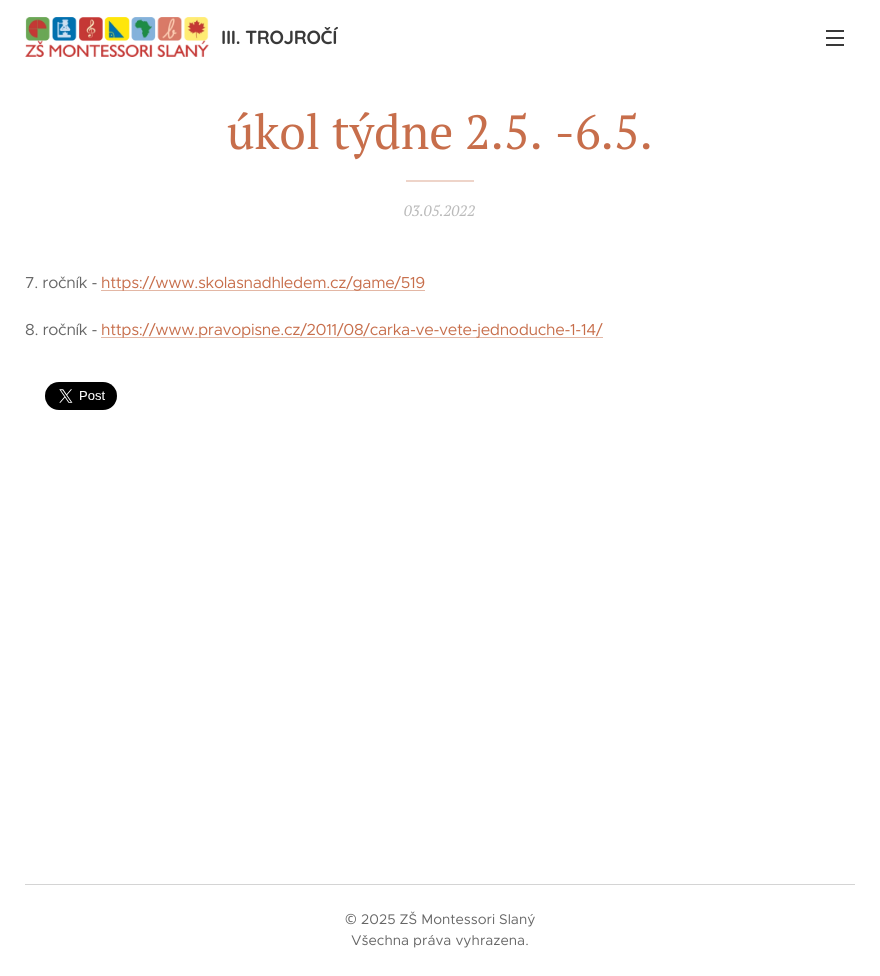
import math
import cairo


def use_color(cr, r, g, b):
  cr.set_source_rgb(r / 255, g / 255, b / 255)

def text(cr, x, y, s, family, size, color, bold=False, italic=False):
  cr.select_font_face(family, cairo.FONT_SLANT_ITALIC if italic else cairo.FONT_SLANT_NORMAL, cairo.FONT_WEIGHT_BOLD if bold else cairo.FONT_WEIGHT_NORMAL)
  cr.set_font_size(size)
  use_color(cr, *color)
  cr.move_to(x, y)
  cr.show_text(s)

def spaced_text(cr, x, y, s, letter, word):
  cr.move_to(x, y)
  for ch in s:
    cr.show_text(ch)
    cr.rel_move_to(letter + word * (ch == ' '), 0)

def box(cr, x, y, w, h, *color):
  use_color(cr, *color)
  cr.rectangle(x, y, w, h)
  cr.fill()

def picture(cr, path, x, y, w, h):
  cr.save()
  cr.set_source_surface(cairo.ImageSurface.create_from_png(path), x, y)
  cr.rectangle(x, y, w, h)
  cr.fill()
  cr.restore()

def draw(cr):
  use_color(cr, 255, 255, 255)
  cr.paint()
  picture(cr, "img_01.png", 25, 17, 184, 40)
  box(cr, 826, 37, 18, 2, 57, 57, 57)
  box(cr, 826, 30, 18, 2, 57, 57, 57)
  box(cr, 826, 44, 18, 2, 57, 57, 57)
  box(cr, 406, 180, 68, 2, 238, 212, 201)
  box(cr, 101, 290, 324, 1, 227, 183, 165)
  box(cr, 101, 337, 502, 1, 227, 183, 165)
  picture(cr, "img_02.png", 45, 382, 72, 28)
  box(cr, 25, 884, 830, 1, 212, 212, 212)
  cr.select_font_face("Quicksand", cairo.FONT_SLANT_NORMAL, cairo.FONT_WEIGHT_BOLD)
  cr.set_font_size(19)
  use_color(cr, 57, 57, 57)
  spaced_text(cr, 221, 44, "III. TROJROČÍ", -0.32, 0)
  text(cr, 227, 149, "úkol týdne 2.5. -6.5.", "PT Serif", 48, (199, 110, 75))
  text(cr, 404, 216, "03.05.2022", "PT Serif", 15, (186, 186, 186), italic=True)
  cr.select_font_face("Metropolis")
  cr.set_font_size(16)
  use_color(cr, 102, 102, 102)
  spaced_text(cr, 25, 288, "7. ročník -", -0.32, 0)
  use_color(cr, 199, 110, 75)
  spaced_text(cr, 101, 288, "https://www.skolasnadhledem.cz/game/519", -0.32, 0)
  use_color(cr, 102, 102, 102)
  spaced_text(cr, 25, 335, "8. ročník -", -0.32, 0)
  use_color(cr, 199, 110, 75)
  spaced_text(cr, 101, 335, "https://www.pravopisne.cz/2011/08/carka-ve-vete-jednoduche-1-14/", -0.32, 0)
  text(cr, 345, 924, "©", "Noto Sans", 14, (102, 102, 102))
  text(cr, 361, 924, "2025 ZŠ Montessori Slaný", "Metropolis", 14, (102, 102, 102))
  text(cr, 351, 945, "Všechna práva vyhrazena.", "Metropolis", 14, (102, 102, 102))


surface = cairo.ImageSurface(cairo.FORMAT_RGB24, 880, 976)
cr = cairo.Context(surface)
options = cairo.FontOptions()
options.set_hint_metrics(cairo.HINT_METRICS_OFF)
options.set_hint_style(cairo.HINT_STYLE_NONE)
cr.set_font_options(options)
cr.set_miter_limit(4)
draw(cr)
surface.write_to_png("out.png")
